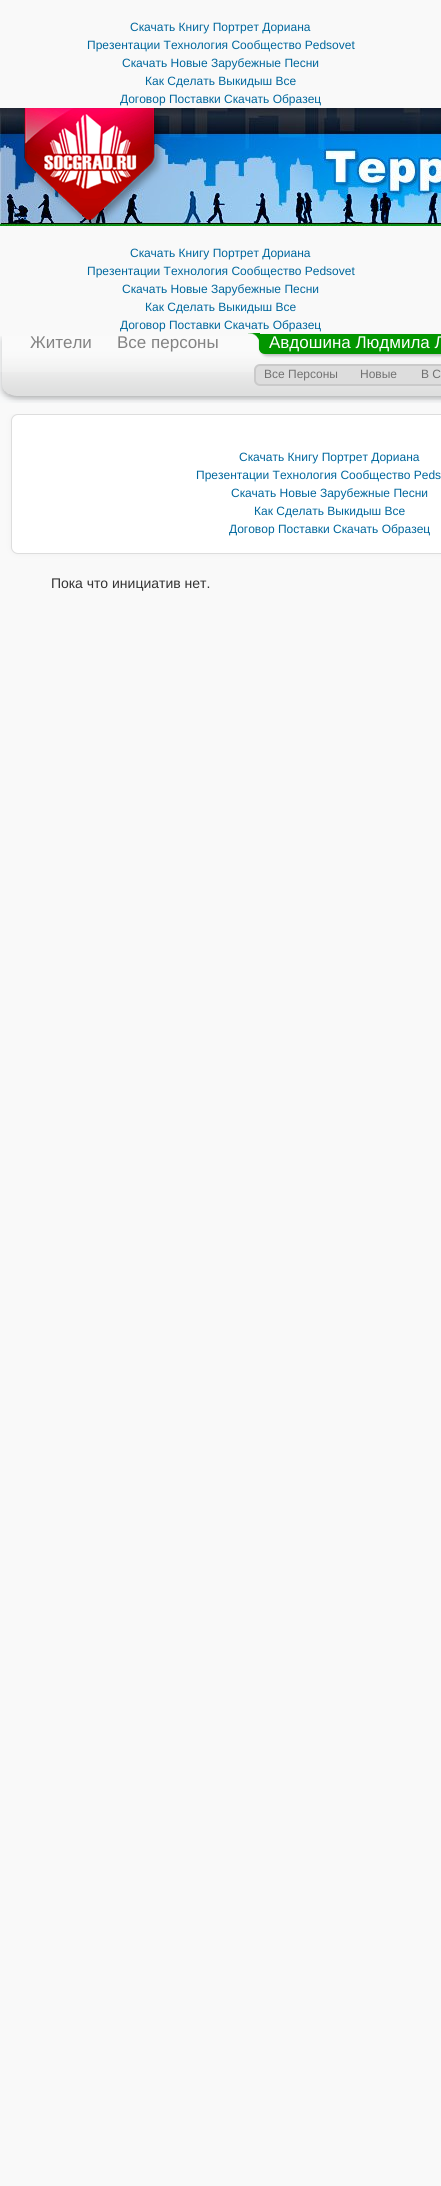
import math
import cairo


def use_color(cr, r, g, b):
  cr.set_source_rgb(r / 255, g / 255, b / 255)

def text(cr, x, y, s, family, size, color, bold=False, italic=False):
  cr.select_font_face(family, cairo.FONT_SLANT_ITALIC if italic else cairo.FONT_SLANT_NORMAL, cairo.FONT_WEIGHT_BOLD if bold else cairo.FONT_WEIGHT_NORMAL)
  cr.set_font_size(size)
  use_color(cr, *color)
  cr.move_to(x, y)
  cr.show_text(s)

def round_rect(cr, x, y, w, h, r):
  cr.new_sub_path()
  for i, (u, v) in enumerate([(x + w - r, y + h - r), (x + r, y + h - r), (x + r, y + r), (x + w - r, y + r)]):
    cr.arc(u, v, r, i * math.pi / 2, (i + 1) * math.pi / 2)
  cr.close_path()

def shadow(cr, x, y, w, h, r, blur, alpha):
  cr.push_group_with_content(cairo.CONTENT_ALPHA)
  cr.set_operator(cairo.OPERATOR_SOURCE)
  for i in range(15, -16, -2):
    e = blur * i / 6
    if min(w, h) + 2 * e > 0:
      cr.set_source_rgba(0, 0, 0, alpha * math.erfc((i - 1) / 8.5) / 2)
      round_rect(cr, x - e, y - e, w + 2 * e, h + 2 * e, max(0, min(r + e + blur * .6, min(w, h) / 2 + e)))
      cr.fill()
  cr.mask(cr.pop_group())

def picture(cr, path, x, y, w, h):
  cr.save()
  cr.set_source_surface(cairo.ImageSurface.create_from_png(path), x, y)
  cr.rectangle(x, y, w, h)
  cr.fill()
  cr.restore()

def draw(cr):
  use_color(cr, 249, 249, 249)
  cr.paint()
  picture(cr, "img_01.png", 0, 108, 441, 118)
  picture(cr, "img_02.png", 23, 108, 141, 118)
  picture(cr, "img_03.png", 0, 336, 441, 67)
  use_color(cr, 189, 189, 189)
  shadow(cr, 261, 336, 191, 20, 6, 1.5, 1)
  use_color(cr, 2, 150, 0)
  cr.new_path()
  cr.move_to(259, 334)
  cr.line_to(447, 334)
  cr.line_to(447, 348)
  cr.curve_to(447, 351.5, 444.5, 354, 441, 354)
  cr.line_to(265, 354)
  cr.curve_to(261.5, 354, 259, 351.5, 259, 348)
  cr.close_path()
  cr.fill()
  picture(cr, "img_04.png", 248, 333, 12, 17)
  use_color(cr, 221, 221, 221)
  round_rect(cr, 255, 365, 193, 20, 5)
  cr.fill_preserve()
  use_color(cr, 202, 202, 202)
  cr.stroke()
  cr.save()
  cr.rectangle(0, 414, 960, 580)
  cr.clip()
  use_color(cr, 238, 238, 238)
  shadow(cr, 11, 414, 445, 140, 7, 2.5, 1)
  cr.restore()
  use_color(cr, 255, 255, 255)
  round_rect(cr, 11.5, 414.5, 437, 139, 6.5)
  cr.fill_preserve()
  use_color(cr, 221, 221, 221)
  cr.set_line_width(1)
  cr.stroke()
  text(cr, 130, 31, "Скачать Книгу Портрет Дориана", "Liberation Sans", 12, (0, 103, 157))
  text(cr, 87, 49, "Презентации Технология Сообщество Pedsovet", "Liberation Sans", 12, (0, 103, 157))
  text(cr, 122, 67, "Скачать Новые Зарубежные Песни", "Liberation Sans", 12, (0, 103, 157))
  text(cr, 145, 85, "Как Сделать Выкидыш Все", "Liberation Sans", 12, (0, 103, 157))
  text(cr, 120, 103, "Договор Поставки Скачать Образец", "Liberation Sans", 12, (0, 103, 157))
  text(cr, 130, 257, "Скачать Книгу Портрет Дориана", "Liberation Sans", 12, (0, 103, 157))
  text(cr, 87, 275, "Презентации Технология Сообщество Pedsovet", "Liberation Sans", 12, (0, 103, 157))
  text(cr, 122, 293, "Скачать Новые Зарубежные Песни", "Liberation Sans", 12, (0, 103, 157))
  text(cr, 145, 311, "Как Сделать Выкидыш Все", "Liberation Sans", 12, (0, 103, 157))
  text(cr, 120, 329, "Договор Поставки Скачать Образец", "Liberation Sans", 12, (0, 103, 157))
  text(cr, 30, 348, "Жители", "Liberation Sans", 17, (131, 131, 131))
  text(cr, 117, 348, "Все персоны", "Liberation Sans", 17, (131, 131, 131))
  text(cr, 269, 348, "Авдошина Людмила Л", "Liberation Sans", 17, (255, 255, 255))
  text(cr, 264, 378, "Все Персоны", "Liberation Sans", 12, (113, 113, 113))
  text(cr, 360, 378, "Новые", "Liberation Sans", 12, (113, 113, 113))
  text(cr, 421, 378, "В С", "Liberation Sans", 12, (113, 113, 113))
  text(cr, 239, 461, "Скачать Книгу Портрет Дориана", "Liberation Sans", 12, (0, 103, 157))
  text(cr, 196, 479, "Презентации Технология Сообщество Peds", "Liberation Sans", 12, (0, 103, 157))
  text(cr, 231, 497, "Скачать Новые Зарубежные Песни", "Liberation Sans", 12, (0, 103, 157))
  text(cr, 254, 515, "Как Сделать Выкидыш Все", "Liberation Sans", 12, (0, 103, 157))
  text(cr, 229, 533, "Договор Поставки Скачать Образец", "Liberation Sans", 12, (0, 103, 157))
  text(cr, 51, 588, "Пока что инициатив нет.", "Liberation Sans", 14, (51, 51, 51))


surface = cairo.ImageSurface(cairo.FORMAT_RGB24, 441, 2186)
cr = cairo.Context(surface)
options = cairo.FontOptions()
options.set_hint_metrics(cairo.HINT_METRICS_OFF)
options.set_hint_style(cairo.HINT_STYLE_NONE)
cr.set_font_options(options)
cr.set_miter_limit(4)
draw(cr)
surface.write_to_png("out.png")
